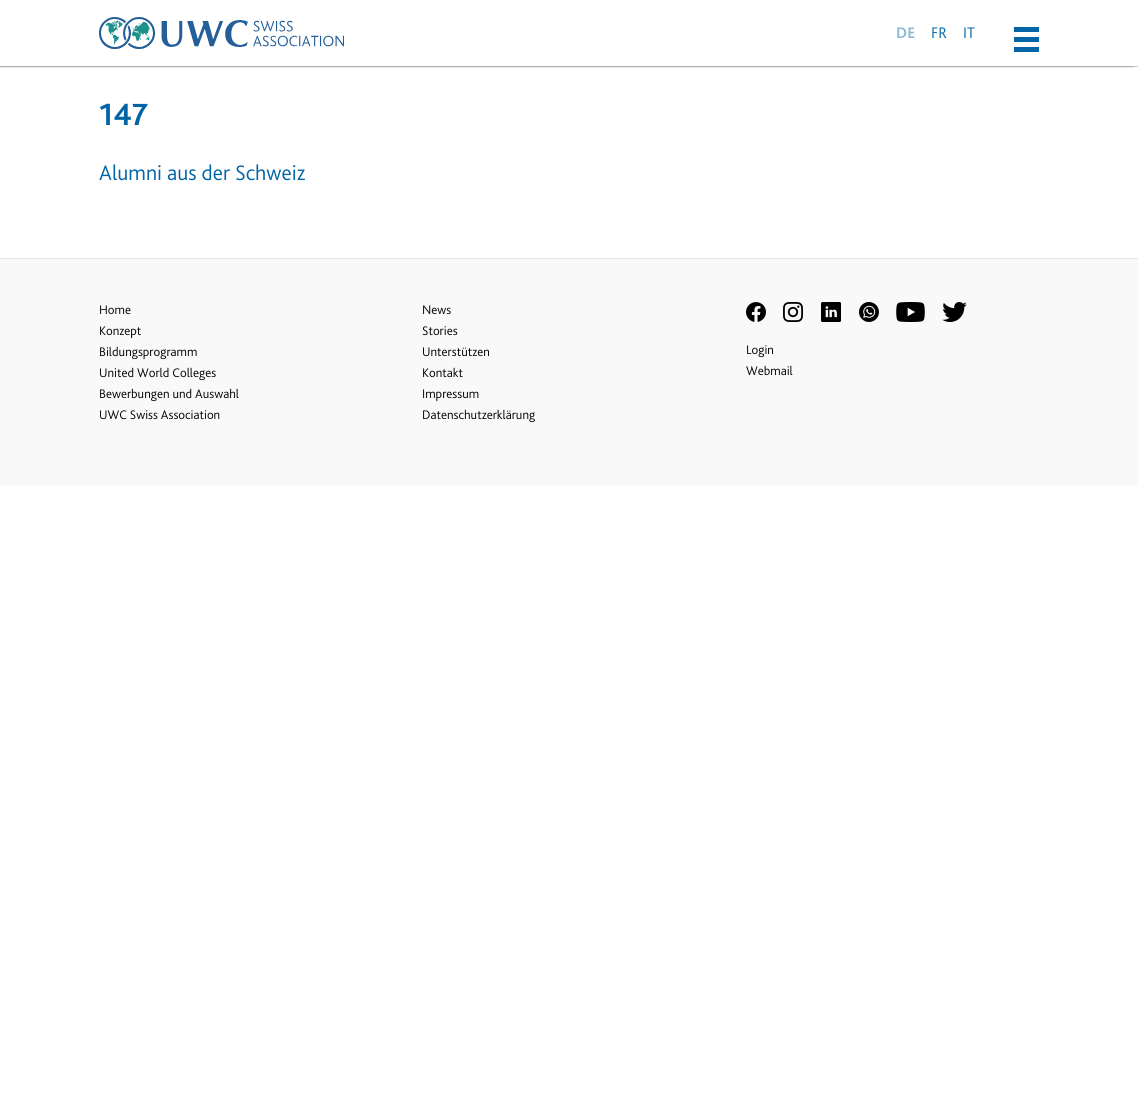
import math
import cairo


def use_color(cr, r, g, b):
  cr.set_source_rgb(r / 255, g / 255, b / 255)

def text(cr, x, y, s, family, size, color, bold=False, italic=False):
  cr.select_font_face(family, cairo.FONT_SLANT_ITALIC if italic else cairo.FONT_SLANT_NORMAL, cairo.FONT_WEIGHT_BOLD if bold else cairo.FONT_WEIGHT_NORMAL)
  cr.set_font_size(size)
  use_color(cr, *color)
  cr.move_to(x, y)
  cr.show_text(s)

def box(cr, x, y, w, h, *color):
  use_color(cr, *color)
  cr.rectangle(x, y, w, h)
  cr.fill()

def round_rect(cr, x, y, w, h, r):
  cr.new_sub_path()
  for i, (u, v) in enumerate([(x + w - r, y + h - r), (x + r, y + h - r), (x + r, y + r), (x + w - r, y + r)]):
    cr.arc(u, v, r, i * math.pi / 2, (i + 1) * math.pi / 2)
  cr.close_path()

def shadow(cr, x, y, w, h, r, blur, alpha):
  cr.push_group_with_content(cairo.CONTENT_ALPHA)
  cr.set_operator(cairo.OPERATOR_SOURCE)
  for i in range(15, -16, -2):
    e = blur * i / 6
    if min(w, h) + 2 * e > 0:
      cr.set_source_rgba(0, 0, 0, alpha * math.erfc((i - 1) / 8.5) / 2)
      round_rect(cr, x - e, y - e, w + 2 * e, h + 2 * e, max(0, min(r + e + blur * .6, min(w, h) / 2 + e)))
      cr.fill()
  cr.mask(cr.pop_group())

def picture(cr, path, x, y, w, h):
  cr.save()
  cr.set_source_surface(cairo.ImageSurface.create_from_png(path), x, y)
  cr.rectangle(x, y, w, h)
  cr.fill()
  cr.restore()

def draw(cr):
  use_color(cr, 255, 255, 255)
  cr.paint()
  box(cr, 0, 66, 1138, 1, 204, 204, 204)
  use_color(cr, 0, 0, 0)
  shadow(cr, -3, 1, 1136, 66, 0, 1, 0.2)
  box(cr, 0, 0, 1135, 66, 255, 255, 255)
  picture(cr, "img_01.png", 99, 17, 245, 32)
  picture(cr, "img_02.png", 1014, 27, 25, 25)
  box(cr, 0, 259, 1138, 227, 249, 249, 249)
  box(cr, 0, 258, 1138, 1, 229, 229, 229)
  picture(cr, "img_03.png", 746, 302, 20, 20)
  picture(cr, "img_04.png", 783, 302, 20, 20)
  picture(cr, "img_05.png", 821, 302, 20, 20)
  picture(cr, "img_06.png", 859, 302, 20, 20)
  picture(cr, "img_07.png", 896, 302, 29, 20)
  picture(cr, "img_08.png", 942, 302, 25, 20)
  text(cr, 896, 38, "DE", "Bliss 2", 16, (139, 185, 215), bold=True)
  text(cr, 931, 38, "FR", "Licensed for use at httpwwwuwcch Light", 16, (0, 100, 166))
  text(cr, 963, 38, "IT", "Licensed for use at httpwwwuwcch Light", 16, (0, 100, 166))
  text(cr, 99, 125, "147", "Bliss 2", 32, (0, 100, 166), bold=True)
  text(cr, 99, 180, "Alumni aus der Schweiz", "Bliss 2 Light", 22, (0, 100, 166))
  text(cr, 99, 314, "Home", "Bliss 2 Light", 13, (0, 0, 0))
  text(cr, 99, 335, "Konzept", "Bliss 2 Light", 13, (0, 0, 0))
  text(cr, 99, 356, "Bildungsprogramm", "Bliss 2 Light", 13, (0, 0, 0))
  text(cr, 99, 377, "United World Colleges", "Bliss 2 Light", 13, (0, 0, 0))
  text(cr, 99, 398, "Bewerbungen und Auswahl", "Bliss 2 Light", 13, (0, 0, 0))
  text(cr, 99, 419, "UWC Swiss Association", "Bliss 2 Light", 13, (0, 0, 0))
  text(cr, 422, 314, "News", "Bliss 2 Light", 13, (0, 0, 0))
  text(cr, 422, 335, "Stories", "Bliss 2 Light", 13, (0, 0, 0))
  text(cr, 422, 356, "Unterstützen", "Bliss 2 Light", 13, (0, 0, 0))
  text(cr, 422, 377, "Kontakt", "Bliss 2 Light", 13, (0, 0, 0))
  text(cr, 422, 398, "Impressum", "Bliss 2 Light", 13, (0, 0, 0))
  text(cr, 422, 419, "Datenschutzerklärung", "Bliss 2 Light", 13, (0, 0, 0))
  text(cr, 746, 354, "Login", "Bliss 2 Light", 13, (0, 0, 0))
  text(cr, 746, 375, "Webmail", "Bliss 2 Light", 13, (0, 0, 0))


surface = cairo.ImageSurface(cairo.FORMAT_RGB24, 1138, 1114)
cr = cairo.Context(surface)
options = cairo.FontOptions()
options.set_hint_metrics(cairo.HINT_METRICS_OFF)
options.set_hint_style(cairo.HINT_STYLE_NONE)
cr.set_font_options(options)
cr.set_miter_limit(4)
draw(cr)
surface.write_to_png("out.png")
